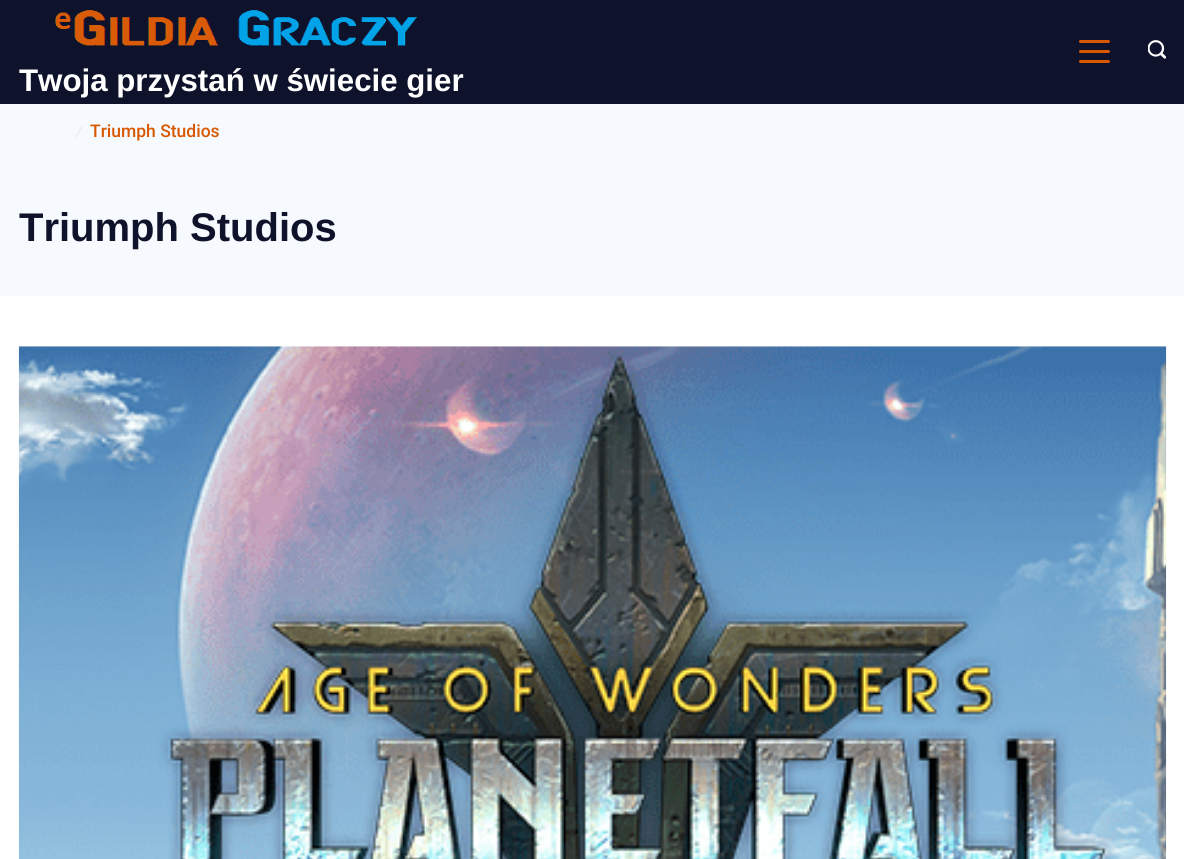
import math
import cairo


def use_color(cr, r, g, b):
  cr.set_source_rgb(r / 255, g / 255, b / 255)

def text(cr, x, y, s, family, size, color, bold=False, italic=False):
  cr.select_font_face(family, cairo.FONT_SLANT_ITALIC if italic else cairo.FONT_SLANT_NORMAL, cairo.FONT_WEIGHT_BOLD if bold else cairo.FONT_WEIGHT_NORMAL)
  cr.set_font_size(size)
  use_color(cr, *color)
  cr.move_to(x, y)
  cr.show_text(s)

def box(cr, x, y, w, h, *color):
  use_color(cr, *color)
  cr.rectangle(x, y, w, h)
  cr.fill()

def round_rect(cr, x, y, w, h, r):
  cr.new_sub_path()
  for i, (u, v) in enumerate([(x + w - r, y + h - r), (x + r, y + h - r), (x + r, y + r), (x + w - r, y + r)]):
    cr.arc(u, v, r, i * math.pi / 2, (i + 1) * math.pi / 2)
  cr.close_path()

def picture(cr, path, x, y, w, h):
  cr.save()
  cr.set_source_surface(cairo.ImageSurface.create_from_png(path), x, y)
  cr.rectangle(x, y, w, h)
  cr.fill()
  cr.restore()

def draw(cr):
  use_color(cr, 255, 255, 255)
  cr.paint()
  box(cr, 0, 0, 1184, 104, 14, 19, 43)
  use_color(cr, 216, 88, 0)
  round_rect(cr, 1079, 50, 31, 3, 1.5)
  cr.fill()
  round_rect(cr, 1079, 40, 31, 3, 1.5)
  cr.fill()
  round_rect(cr, 1079, 60, 31, 3, 1.5)
  cr.fill()
  picture(cr, "img_01.png", 1148, 40, 18, 19)
  picture(cr, "img_02.png", 55, 10, 362, 36)
  box(cr, 0, 104, 1184, 192, 246, 249, 254)
  picture(cr, "img_03.png", 75, 126, 7, 12)
  picture(cr, "img_04.png", 18, 346, 1149, 513)
  text(cr, 19, 91, "Twoja przystań w świecie gier", "Liberation Sans", 31.25, (255, 255, 255), bold=True)
  text(cr, 90, 137, "Triumph Studios", "Roboto Medium", 17.5, (216, 88, 0))
  text(cr, 19, 241, "Triumph Studios", "Liberation Sans", 40, (14, 19, 43), bold=True)


surface = cairo.ImageSurface(cairo.FORMAT_RGB24, 1184, 859)
cr = cairo.Context(surface)
options = cairo.FontOptions()
options.set_hint_metrics(cairo.HINT_METRICS_OFF)
options.set_hint_style(cairo.HINT_STYLE_NONE)
cr.set_font_options(options)
cr.set_miter_limit(4)
draw(cr)
surface.write_to_png("out.png")
